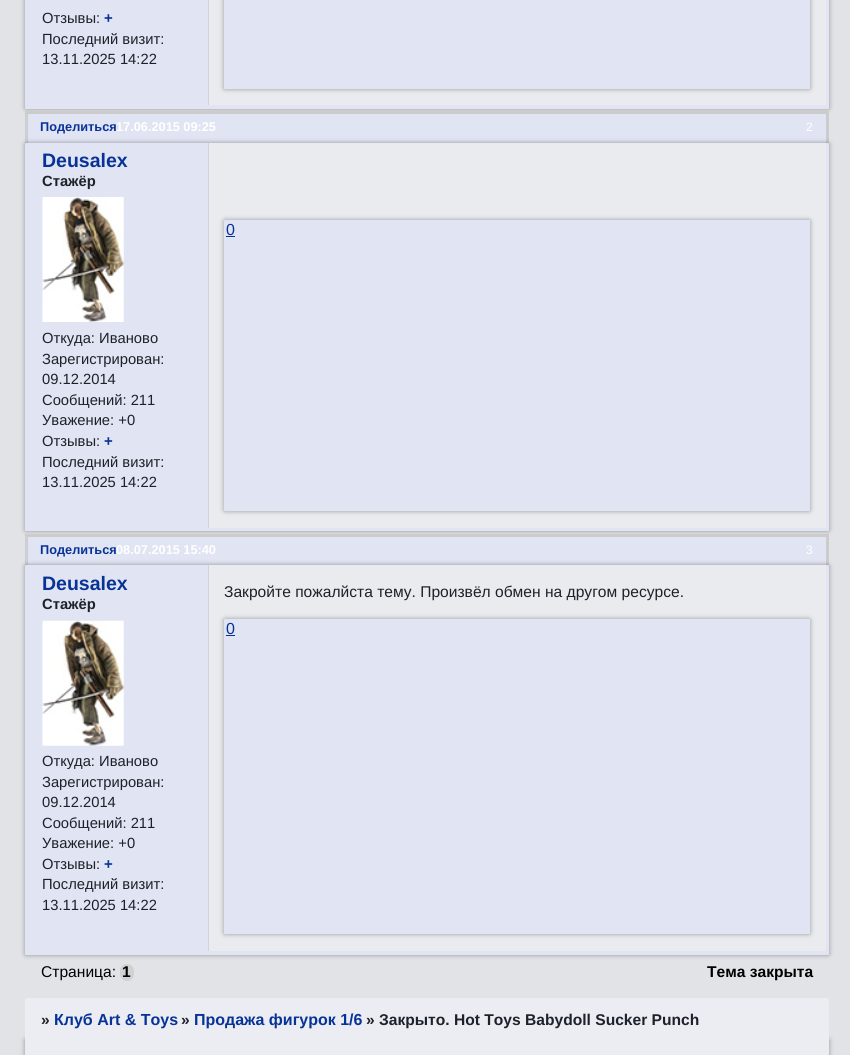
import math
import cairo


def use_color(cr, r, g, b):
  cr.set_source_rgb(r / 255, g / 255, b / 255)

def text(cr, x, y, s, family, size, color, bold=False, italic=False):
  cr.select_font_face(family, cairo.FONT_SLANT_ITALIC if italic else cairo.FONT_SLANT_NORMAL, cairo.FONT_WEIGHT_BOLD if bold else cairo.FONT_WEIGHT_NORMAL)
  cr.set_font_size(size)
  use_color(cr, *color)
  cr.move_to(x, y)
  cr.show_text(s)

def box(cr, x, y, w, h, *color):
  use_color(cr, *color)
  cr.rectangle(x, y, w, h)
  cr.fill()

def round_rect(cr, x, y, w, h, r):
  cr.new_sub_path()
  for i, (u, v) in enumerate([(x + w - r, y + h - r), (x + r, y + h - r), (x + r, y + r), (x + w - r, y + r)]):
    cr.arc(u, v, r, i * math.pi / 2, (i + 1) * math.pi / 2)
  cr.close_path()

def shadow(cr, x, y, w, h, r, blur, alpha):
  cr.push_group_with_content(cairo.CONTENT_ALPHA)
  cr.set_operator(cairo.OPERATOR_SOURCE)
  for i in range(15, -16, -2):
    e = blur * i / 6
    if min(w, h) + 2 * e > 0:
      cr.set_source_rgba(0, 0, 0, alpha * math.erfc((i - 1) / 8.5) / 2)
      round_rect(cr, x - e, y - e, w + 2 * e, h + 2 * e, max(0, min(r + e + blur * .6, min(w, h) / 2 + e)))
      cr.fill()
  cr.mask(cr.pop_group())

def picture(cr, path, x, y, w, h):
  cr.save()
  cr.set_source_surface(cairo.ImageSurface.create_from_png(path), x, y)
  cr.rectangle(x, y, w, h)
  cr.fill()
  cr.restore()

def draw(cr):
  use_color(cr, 226, 227, 231)
  cr.paint()
  use_color(cr, 0, 0, 0)
  shadow(cr, 25, -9, 804, 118, 1, 2.5, 0.35)
  use_color(cr, 225, 228, 242)
  round_rect(cr, 25, -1, 804, 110, 1)
  cr.fill()
  box(cr, 209, 0, 617, 105, 233, 235, 238)
  box(cr, 208, 0, 1, 105, 209, 209, 225)
  use_color(cr, 0, 0, 0)
  shadow(cr, 224, -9, 586, 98, 1, 2.5, 0.35)
  use_color(cr, 225, 228, 242)
  round_rect(cr, 224, -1, 586, 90, 1)
  cr.fill()
  box(cr, 28, 114, 798, 29, 225, 228, 242)
  box(cr, 25, 111, 804, 3, 204, 204, 204)
  box(cr, 826, 111, 3, 33, 204, 204, 204)
  box(cr, 25, 111, 3, 33, 204, 204, 204)
  box(cr, 26, 114, 1, 30, 209, 209, 225)
  use_color(cr, 0, 0, 0)
  shadow(cr, 25, 143, 804, 388, 1, 2.5, 0.35)
  use_color(cr, 225, 228, 242)
  round_rect(cr, 25, 143, 804, 388, 1)
  cr.fill()
  picture(cr, "img_01.png", 42, 197, 82, 125)
  box(cr, 209, 143, 617, 385, 233, 235, 238)
  box(cr, 208, 143, 1, 385, 209, 209, 225)
  use_color(cr, 0, 0, 0)
  shadow(cr, 224, 220, 586, 291, 1, 2.5, 0.35)
  use_color(cr, 225, 228, 242)
  round_rect(cr, 224, 220, 586, 291, 1)
  cr.fill()
  box(cr, 226, 236, 9, 1, 7, 51, 151)
  box(cr, 28, 537, 798, 28, 225, 228, 242)
  box(cr, 25, 534, 804, 3, 204, 204, 204)
  box(cr, 826, 534, 3, 32, 204, 204, 204)
  box(cr, 25, 534, 3, 32, 204, 204, 204)
  box(cr, 26, 536, 1, 30, 209, 209, 225)
  use_color(cr, 0, 0, 0)
  shadow(cr, 25, 565, 804, 390, 1, 2.5, 0.35)
  use_color(cr, 225, 228, 242)
  round_rect(cr, 25, 565, 804, 390, 1)
  cr.fill()
  picture(cr, "img_02.png", 42, 620, 82, 126)
  box(cr, 209, 565, 617, 386, 233, 235, 238)
  box(cr, 208, 565, 1, 386, 209, 209, 225)
  use_color(cr, 0, 0, 0)
  shadow(cr, 224, 619, 586, 315, 1, 2.5, 0.35)
  use_color(cr, 225, 228, 242)
  round_rect(cr, 224, 619, 586, 315, 1)
  cr.fill()
  box(cr, 226, 635, 9, 1, 7, 51, 151)
  use_color(cr, 209, 209, 209)
  round_rect(cr, 120, 964, 14, 17, 7)
  cr.fill()
  use_color(cr, 0, 0, 0)
  shadow(cr, 25, 1039, 804, 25, 1, 2.5, 0.35)
  box(cr, 25, 1040, 804, 15, 236, 237, 243)
  cr.save()
  cr.rectangle(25, 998, 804, 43)
  cr.clip()
  use_color(cr, 0, 0, 0)
  shadow(cr, 25, 998, 804, 43, 1, 2.5, 0.35)
  cr.restore()
  round_rect(cr, 25, 998, 804, 43, 1)
  cr.fill()
  text(cr, 42, 23, "Отзывы:", "Liberation Sans", 14.75, (29, 33, 41))
  text(cr, 104, 23, "+", "Liberation Sans", 15, (7, 51, 151), bold=True)
  text(cr, 42, 44, "Последний визит:", "Liberation Sans", 14.75, (29, 33, 41))
  text(cr, 42, 64, "13.11.2025 14:22", "Liberation Sans", 14.75, (29, 33, 41))
  text(cr, 40, 131, "Поделиться", "Liberation Sans", 12.75, (7, 51, 151), bold=True)
  text(cr, 116, 131, "17.06.2015 09:25", "Liberation Sans", 12.75, (255, 255, 255), bold=True)
  text(cr, 806, 131, "2", "Liberation Sans", 12, (255, 255, 255))
  text(cr, 42, 167, "Deusalex", "Liberation Sans", 19.5, (7, 51, 151), bold=True)
  text(cr, 42, 186, "Стажёр", "Liberation Sans", 14.75, (29, 33, 41), bold=True)
  text(cr, 42, 343, "Откуда: Иваново", "Liberation Sans", 14.75, (29, 33, 41))
  text(cr, 42, 364, "Зарегистрирован:", "Liberation Sans", 14.75, (29, 33, 41))
  text(cr, 42, 384, "09.12.2014", "Liberation Sans", 14.75, (29, 33, 41))
  text(cr, 42, 405, "Сообщений: 211", "Liberation Sans", 14.75, (29, 33, 41))
  text(cr, 42, 425, "Уважение: +0", "Liberation Sans", 14.75, (29, 33, 41))
  text(cr, 42, 446, "Отзывы:", "Liberation Sans", 14.75, (29, 33, 41))
  text(cr, 104, 446, "+", "Liberation Sans", 15, (7, 51, 151), bold=True)
  text(cr, 42, 467, "Последний визит:", "Liberation Sans", 14.75, (29, 33, 41))
  text(cr, 42, 487, "13.11.2025 14:22", "Liberation Sans", 14.75, (29, 33, 41))
  text(cr, 226, 235, "0", "Liberation Sans", 16, (7, 51, 151))
  text(cr, 40, 554, "Поделиться", "Liberation Sans", 12.75, (7, 51, 151), bold=True)
  text(cr, 116, 554, "08.07.2015 15:40", "Liberation Sans", 12.75, (255, 255, 255), bold=True)
  text(cr, 806, 554, "3", "Liberation Sans", 12, (255, 255, 255))
  text(cr, 42, 590, "Deusalex", "Liberation Sans", 19.5, (7, 51, 151), bold=True)
  text(cr, 42, 609, "Стажёр", "Liberation Sans", 14.75, (29, 33, 41), bold=True)
  text(cr, 42, 766, "Откуда: Иваново", "Liberation Sans", 14.75, (29, 33, 41))
  text(cr, 42, 787, "Зарегистрирован:", "Liberation Sans", 14.75, (29, 33, 41))
  text(cr, 42, 807, "09.12.2014", "Liberation Sans", 14.75, (29, 33, 41))
  text(cr, 42, 828, "Сообщений: 211", "Liberation Sans", 14.75, (29, 33, 41))
  text(cr, 42, 848, "Уважение: +0", "Liberation Sans", 14.75, (29, 33, 41))
  text(cr, 42, 869, "Отзывы:", "Liberation Sans", 14.75, (29, 33, 41))
  text(cr, 104, 869, "+", "Liberation Sans", 15, (7, 51, 151), bold=True)
  text(cr, 42, 889, "Последний визит:", "Liberation Sans", 14.75, (29, 33, 41))
  text(cr, 42, 910, "13.11.2025 14:22", "Liberation Sans", 14.75, (29, 33, 41))
  text(cr, 224, 597, "Закройте пожалйста тему. Произвёл обмен на другом ресурсе.", "Liberation Sans", 15.6, (29, 33, 41))
  text(cr, 226, 634, "0", "Liberation Sans", 16, (7, 51, 151))
  text(cr, 41, 977, "Страница:", "Liberation Sans", 15.6, (0, 0, 0))
  text(cr, 122, 977, "1", "Liberation Sans", 15.6, (0, 0, 0), bold=True)
  text(cr, 707, 977, "Тема закрыта", "Liberation Sans", 15.6, (0, 0, 0), bold=True)
  text(cr, 41, 1025, "»", "Liberation Sans", 15.6, (29, 33, 41), bold=True)
  text(cr, 54, 1025, "Клуб Art & Toys", "Liberation Sans", 16, (7, 51, 151), bold=True)
  text(cr, 181, 1025, "»", "Liberation Sans", 15.6, (29, 33, 41), bold=True)
  text(cr, 194, 1025, "Продажа фигурок 1/6", "Liberation Sans", 16, (7, 51, 151), bold=True)
  text(cr, 366, 1025, "» Закрытo. Hot Toys Babydoll Sucker Punch", "Liberation Sans", 15.6, (29, 33, 41), bold=True)


surface = cairo.ImageSurface(cairo.FORMAT_RGB24, 850, 1055)
cr = cairo.Context(surface)
options = cairo.FontOptions()
options.set_hint_metrics(cairo.HINT_METRICS_OFF)
options.set_hint_style(cairo.HINT_STYLE_NONE)
cr.set_font_options(options)
cr.set_miter_limit(4)
draw(cr)
surface.write_to_png("out.png")
